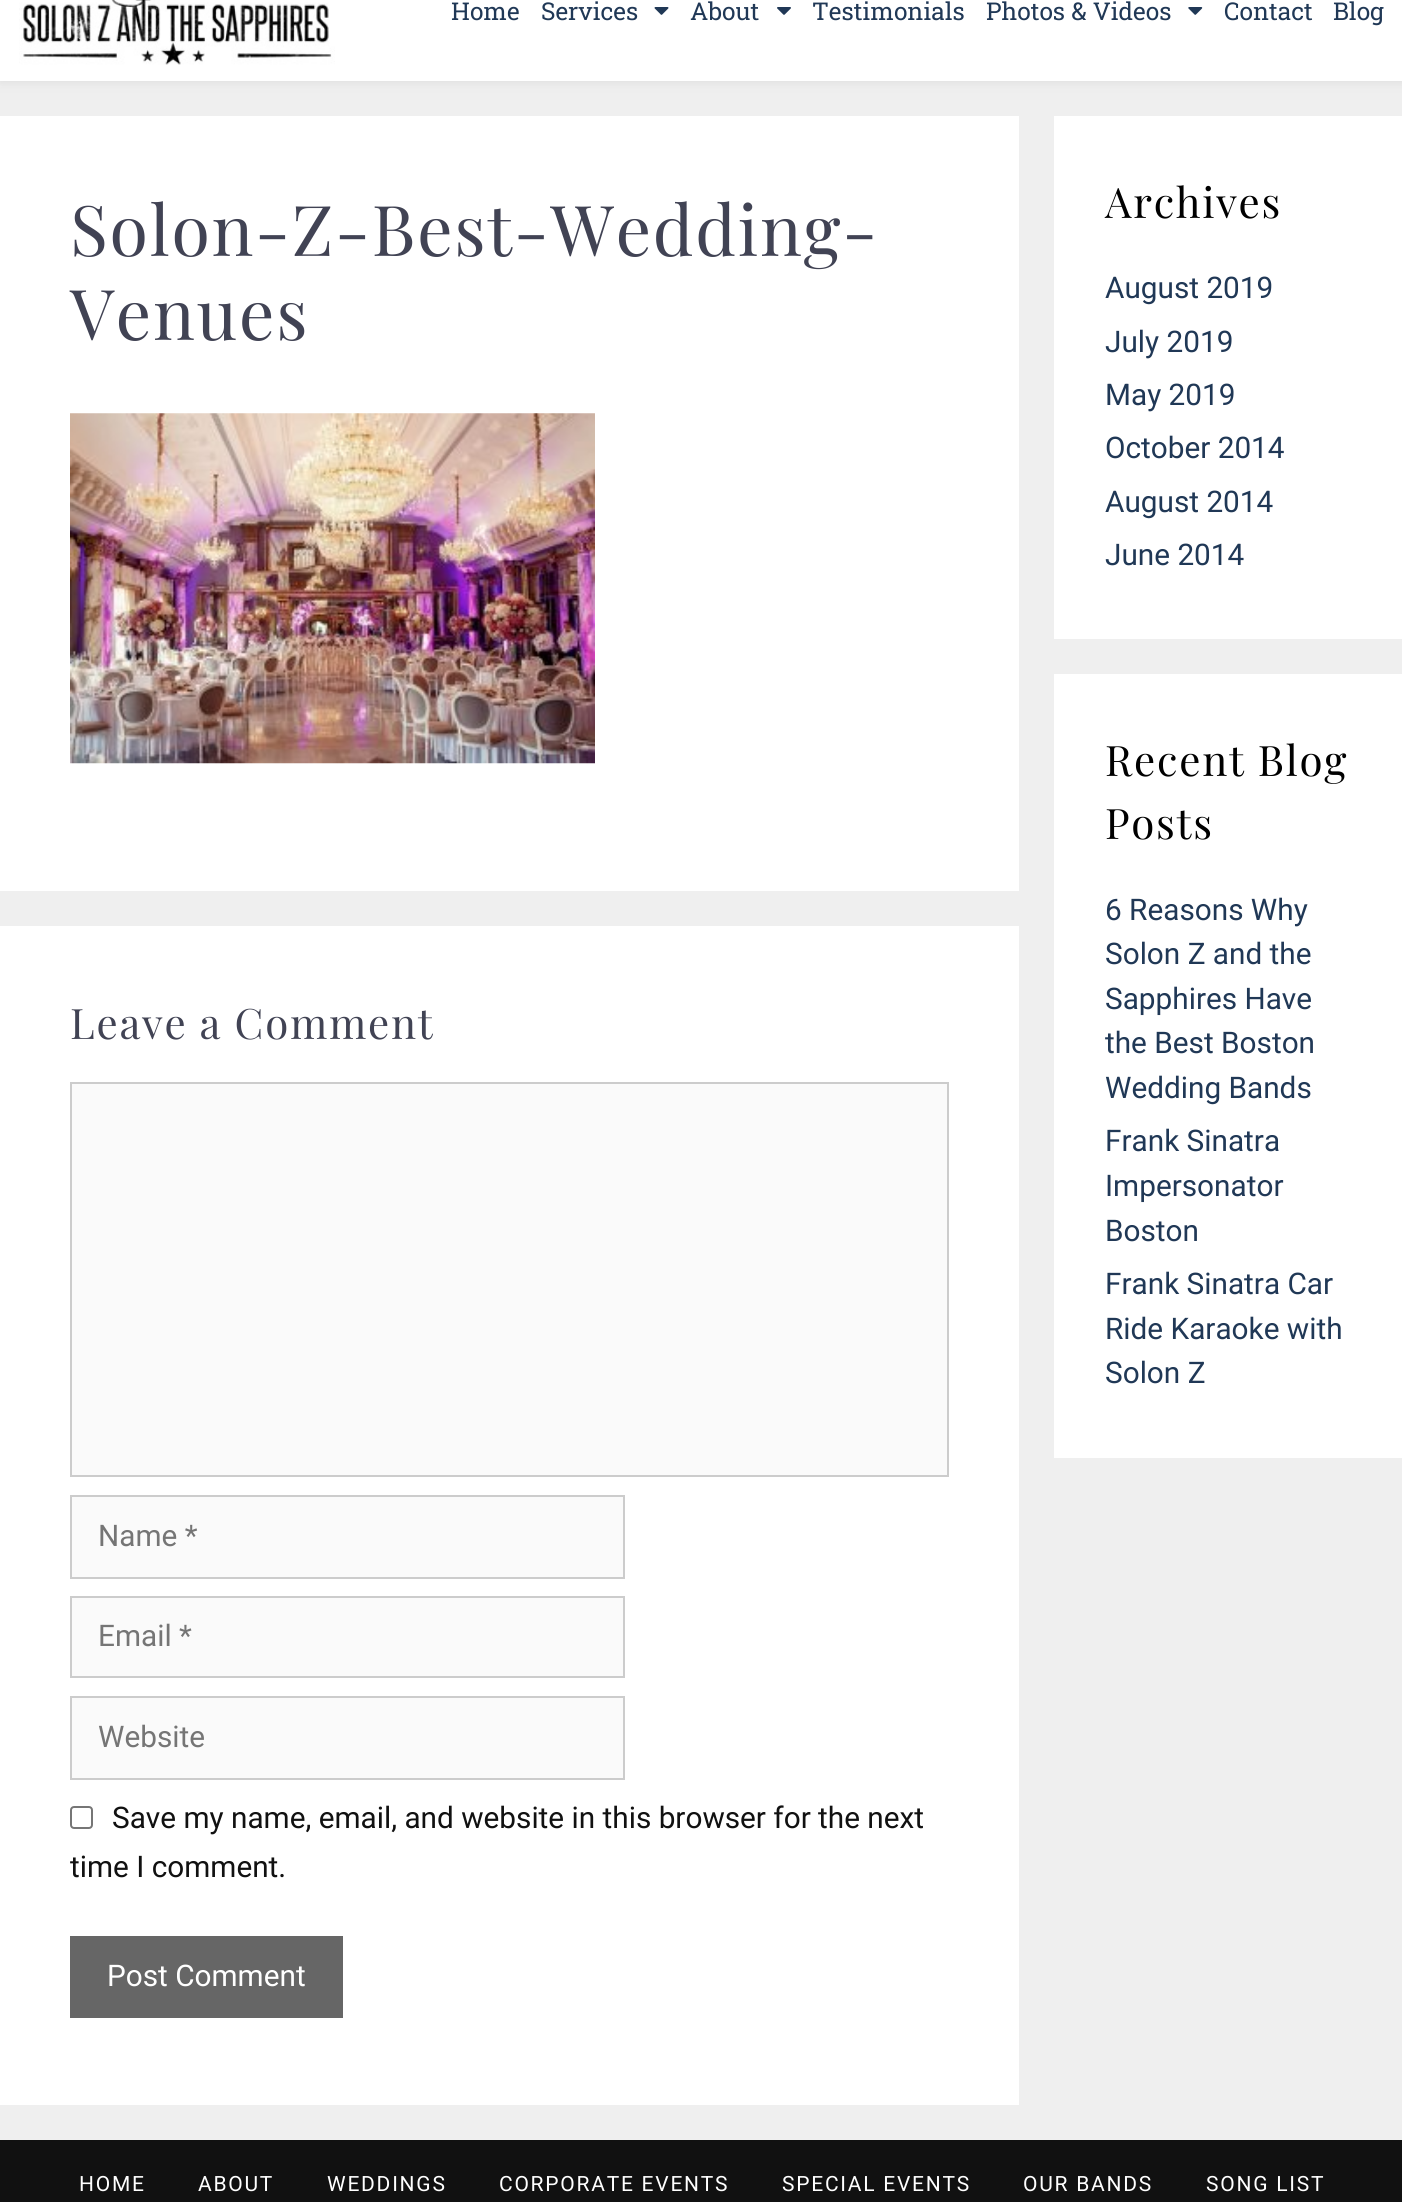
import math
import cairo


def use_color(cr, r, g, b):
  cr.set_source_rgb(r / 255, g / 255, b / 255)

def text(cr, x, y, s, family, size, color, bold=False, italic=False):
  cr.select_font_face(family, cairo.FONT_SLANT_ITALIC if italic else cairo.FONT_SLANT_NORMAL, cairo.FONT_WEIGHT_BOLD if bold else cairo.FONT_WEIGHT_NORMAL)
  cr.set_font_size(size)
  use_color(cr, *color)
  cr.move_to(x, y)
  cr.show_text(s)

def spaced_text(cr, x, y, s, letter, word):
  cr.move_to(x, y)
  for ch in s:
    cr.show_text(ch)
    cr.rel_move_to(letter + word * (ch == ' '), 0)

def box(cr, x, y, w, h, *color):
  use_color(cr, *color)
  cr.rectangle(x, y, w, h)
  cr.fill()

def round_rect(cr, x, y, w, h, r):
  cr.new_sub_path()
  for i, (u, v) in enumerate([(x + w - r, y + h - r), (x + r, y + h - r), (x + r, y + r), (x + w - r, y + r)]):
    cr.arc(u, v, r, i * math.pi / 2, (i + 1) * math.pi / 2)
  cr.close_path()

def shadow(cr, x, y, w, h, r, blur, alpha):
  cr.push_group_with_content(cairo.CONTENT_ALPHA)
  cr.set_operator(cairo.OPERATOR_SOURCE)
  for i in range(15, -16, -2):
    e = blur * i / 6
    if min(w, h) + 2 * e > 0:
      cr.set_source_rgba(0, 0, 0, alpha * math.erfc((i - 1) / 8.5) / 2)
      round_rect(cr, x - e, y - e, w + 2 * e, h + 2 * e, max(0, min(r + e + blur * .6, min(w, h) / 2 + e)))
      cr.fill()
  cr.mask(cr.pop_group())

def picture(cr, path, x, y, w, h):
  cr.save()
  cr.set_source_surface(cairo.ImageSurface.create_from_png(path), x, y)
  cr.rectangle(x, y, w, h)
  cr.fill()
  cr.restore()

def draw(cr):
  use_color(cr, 239, 239, 239)
  cr.paint()
  use_color(cr, 221, 221, 221)
  shadow(cr, 0, -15, 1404, 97, 0, 5, 1)
  box(cr, 0, 0, 1402, 81, 255, 255, 255)
  picture(cr, "img_01.png", 19, 0, 316, 65)
  picture(cr, "img_02.png", 654, 7, 15, 8)
  picture(cr, "img_03.png", 777, 7, 14, 8)
  picture(cr, "img_04.png", 1188, 7, 15, 8)
  box(cr, 0, 116, 1019, 775, 255, 255, 255)
  picture(cr, "img_05.png", 70, 413, 525, 351)
  box(cr, 0, 926, 1019, 1179, 255, 255, 255)
  use_color(cr, 250, 250, 250)
  cr.rectangle(71, 1083, 877, 393)
  cr.fill_preserve()
  use_color(cr, 204, 204, 204)
  cr.stroke()
  use_color(cr, 250, 250, 250)
  cr.rectangle(71, 1496, 553, 82)
  cr.fill_preserve()
  use_color(cr, 204, 204, 204)
  cr.stroke()
  use_color(cr, 250, 250, 250)
  cr.rectangle(71, 1597, 553, 80)
  cr.fill_preserve()
  use_color(cr, 204, 204, 204)
  cr.stroke()
  use_color(cr, 250, 250, 250)
  cr.rectangle(71, 1697, 553, 82)
  cr.fill_preserve()
  use_color(cr, 204, 204, 204)
  cr.stroke()
  round_rect(cr, 71, 1807, 21, 21, 3)
  use_color(cr, 118, 118, 118)
  cr.stroke()
  box(cr, 70, 1936, 273, 82, 102, 102, 102)
  box(cr, 1054, 116, 348, 523, 255, 255, 255)
  box(cr, 1054, 674, 348, 784, 255, 255, 255)
  box(cr, 0, 2140, 1402, 62, 17, 17, 17)
  text(cr, 451, 20, "Home", "Roboto Slab", 24.5, (32, 56, 86))
  text(cr, 541, 20, "Services", "Roboto Slab", 24.5, (32, 56, 86))
  text(cr, 690, 20, "About", "Roboto Slab", 24.5, (32, 56, 86))
  text(cr, 812, 20, "Testimonials", "Roboto Slab", 24.5, (32, 56, 86))
  text(cr, 986, 20, "Photos & Videos", "Roboto Slab", 24.5, (32, 56, 86))
  text(cr, 1224, 20, "Contact", "Roboto Slab", 24.5, (32, 56, 86))
  text(cr, 1333, 20, "Blog", "Roboto Slab", 24.5, (32, 56, 86))
  cr.select_font_face("Playfair Display")
  cr.set_font_size(70)
  use_color(cr, 65, 67, 84)
  spaced_text(cr, 70, 256, "Solon-Z-Best-Wedding-", 1.75, 0)
  spaced_text(cr, 70, 340, "Venues", 1.75, 0)
  cr.set_font_size(42)
  spaced_text(cr, 70, 1039, "Leave a Comment", 1.75, 0)
  text(cr, 98, 1546, "Name *", "Roboto", 29.75, (117, 117, 117))
  text(cr, 98, 1646, "Email *", "Roboto", 29.75, (117, 117, 117))
  text(cr, 98, 1747, "Website", "Roboto", 29.75, (117, 117, 117))
  text(cr, 112, 1828, "Save my name, email, and website in this browser for the next", "Roboto", 29.75, (17, 17, 17))
  text(cr, 70, 1877, "time I comment.", "Roboto", 29.75, (17, 17, 17))
  text(cr, 107, 1986, "Post Comment", "Roboto", 29.75, (255, 255, 255))
  cr.select_font_face("Playfair Display")
  cr.set_font_size(42)
  use_color(cr, 0, 0, 0)
  spaced_text(cr, 1105, 218, "Archives", 1.75, 0)
  text(cr, 1105, 298, "August 2019", "Roboto", 29.75, (32, 56, 86))
  text(cr, 1105, 352, "July 2019", "Roboto", 29.75, (32, 56, 86))
  text(cr, 1105, 405, "May 2019", "Roboto", 29.75, (32, 56, 86))
  text(cr, 1105, 458, "October 2014", "Roboto", 29.75, (32, 56, 86))
  text(cr, 1105, 512, "August 2014", "Roboto", 29.75, (32, 56, 86))
  text(cr, 1105, 565, "June 2014", "Roboto", 29.75, (32, 56, 86))
  cr.select_font_face("Playfair Display")
  cr.set_font_size(42)
  use_color(cr, 0, 0, 0)
  spaced_text(cr, 1105, 776, "Recent Blog", 1.75, 0)
  spaced_text(cr, 1105, 839, "Posts", 1.75, 0)
  text(cr, 1105, 920, "6 Reasons Why", "Roboto", 29.75, (32, 56, 86))
  text(cr, 1105, 964, "Solon Z and the", "Roboto", 29.75, (32, 56, 86))
  text(cr, 1105, 1009, "Sapphires Have", "Roboto", 29.75, (32, 56, 86))
  text(cr, 1105, 1053, "the Best Boston", "Roboto", 29.75, (32, 56, 86))
  text(cr, 1105, 1098, "Wedding Bands", "Roboto", 29.75, (32, 56, 86))
  text(cr, 1105, 1151, "Frank Sinatra", "Roboto", 29.75, (32, 56, 86))
  text(cr, 1105, 1196, "Impersonator", "Roboto", 29.75, (32, 56, 86))
  text(cr, 1105, 1241, "Boston", "Roboto", 29.75, (32, 56, 86))
  text(cr, 1105, 1294, "Frank Sinatra Car", "Roboto", 29.75, (32, 56, 86))
  text(cr, 1105, 1339, "Ride Karaoke with", "Roboto", 29.75, (32, 56, 86))
  text(cr, 1105, 1383, "Solon Z", "Roboto", 29.75, (32, 56, 86))
  cr.set_font_size(21)
  use_color(cr, 255, 255, 255)
  spaced_text(cr, 79, 2191, "HOME", 1.75, 0)
  spaced_text(cr, 198, 2191, "ABOUT", 1.75, 0)
  spaced_text(cr, 327, 2191, "WEDDINGS", 1.75, 0)
  spaced_text(cr, 499, 2191, "CORPORATE EVENTS", 1.75, 0)
  spaced_text(cr, 782, 2191, "SPECIAL EVENTS", 1.75, 0)
  spaced_text(cr, 1023, 2191, "OUR BANDS", 1.75, 0)
  spaced_text(cr, 1206, 2191, "SONG LIST", 1.75, 0)


surface = cairo.ImageSurface(cairo.FORMAT_RGB24, 1402, 2202)
cr = cairo.Context(surface)
options = cairo.FontOptions()
options.set_hint_metrics(cairo.HINT_METRICS_OFF)
options.set_hint_style(cairo.HINT_STYLE_NONE)
cr.set_font_options(options)
cr.set_miter_limit(4)
draw(cr)
surface.write_to_png("out.png")
